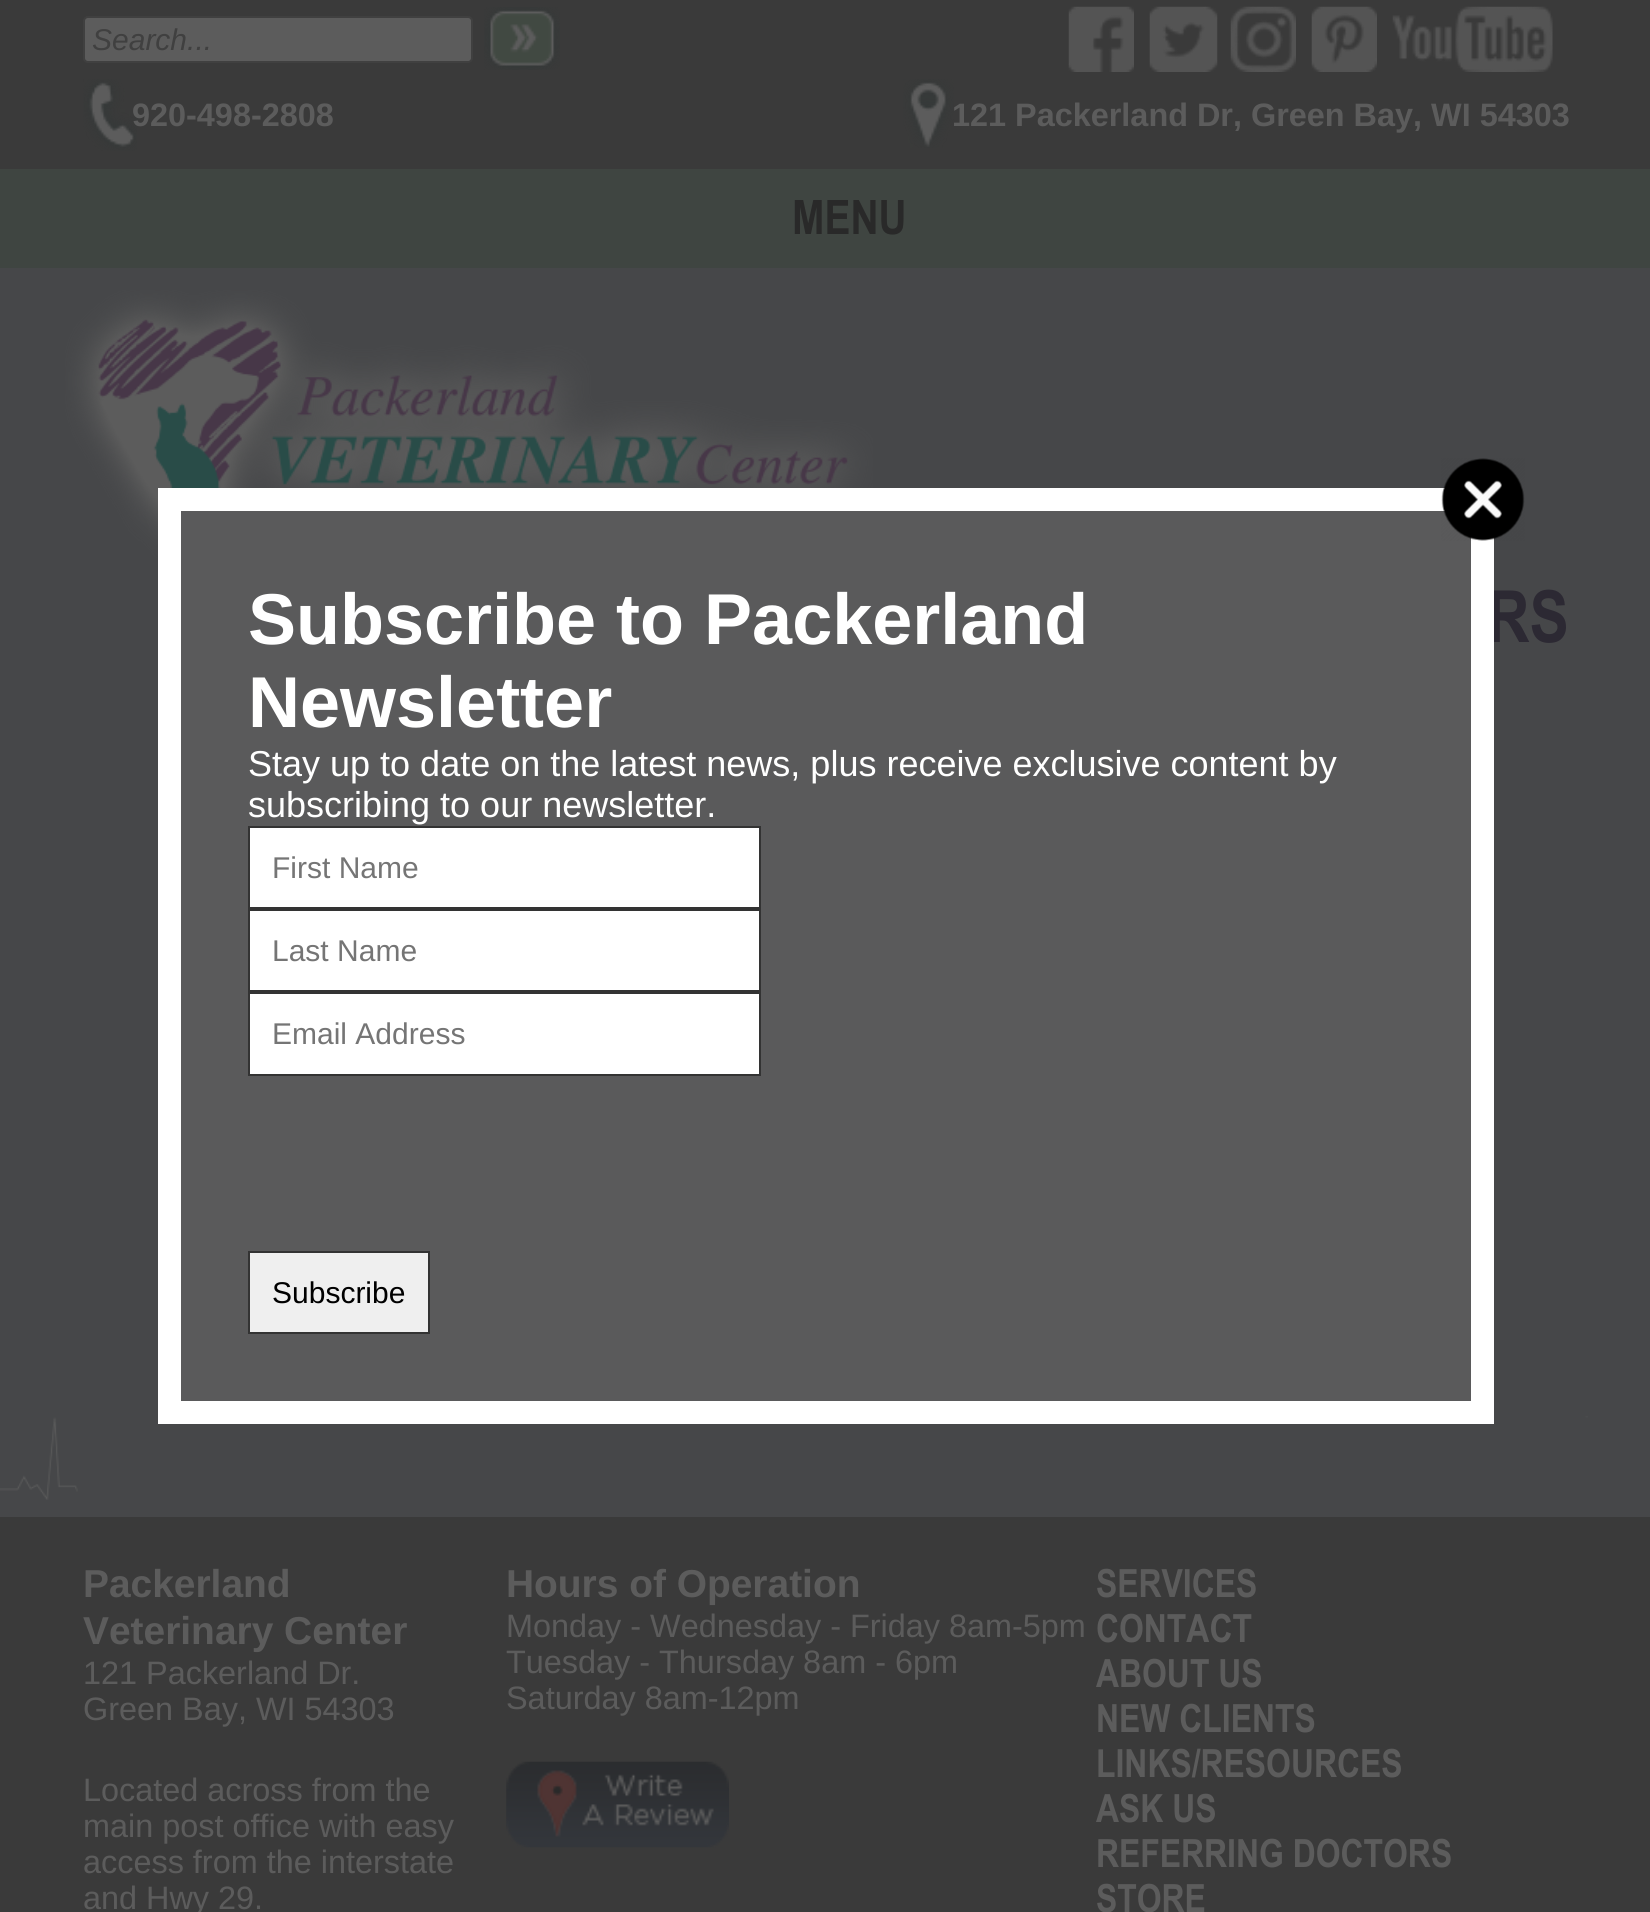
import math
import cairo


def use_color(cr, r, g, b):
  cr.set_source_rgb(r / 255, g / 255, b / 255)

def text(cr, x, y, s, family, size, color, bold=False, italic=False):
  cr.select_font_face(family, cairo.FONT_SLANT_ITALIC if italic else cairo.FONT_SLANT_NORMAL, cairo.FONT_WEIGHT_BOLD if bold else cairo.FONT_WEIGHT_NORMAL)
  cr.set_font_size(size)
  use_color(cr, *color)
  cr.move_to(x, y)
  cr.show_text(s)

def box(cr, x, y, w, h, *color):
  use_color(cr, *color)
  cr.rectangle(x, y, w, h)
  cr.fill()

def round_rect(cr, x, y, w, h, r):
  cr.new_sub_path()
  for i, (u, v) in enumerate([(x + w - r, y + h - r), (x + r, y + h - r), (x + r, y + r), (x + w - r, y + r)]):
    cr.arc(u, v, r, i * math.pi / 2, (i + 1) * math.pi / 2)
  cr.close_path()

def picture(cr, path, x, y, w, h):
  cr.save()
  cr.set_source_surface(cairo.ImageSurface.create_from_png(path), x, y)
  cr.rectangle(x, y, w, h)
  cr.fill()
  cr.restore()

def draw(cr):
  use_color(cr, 70, 71, 73)
  cr.paint()
  box(cr, 0, 0, 1650, 169, 58, 58, 58)
  use_color(cr, 92, 92, 92)
  round_rect(cr, 84, 17, 388, 45, 4)
  cr.fill_preserve()
  use_color(cr, 64, 64, 64)
  cr.stroke()
  picture(cr, "img_01.png", 484, 7, 76, 63)
  picture(cr, "img_02.png", 1068, 6, 66, 66)
  picture(cr, "img_03.png", 1149, 6, 69, 66)
  picture(cr, "img_04.png", 1230, 6, 66, 66)
  picture(cr, "img_05.png", 1311, 6, 66, 66)
  picture(cr, "img_06.png", 1392, 6, 161, 66)
  picture(cr, "img_07.png", 83, 79, 54, 72)
  picture(cr, "img_08.png", 903, 79, 51, 69)
  box(cr, 0, 169, 1650, 99, 63, 69, 65)
  picture(cr, "img_10.png", 65, 290, 808, 268)
  picture(cr, "img_11.png", 0, 1416, 1588, 84)
  box(cr, 0, 1517, 1650, 395, 58, 58, 58)
  picture(cr, "img_12.png", 506, 1761, 223, 87)
  text(cr, 92, 50, "Search...", "Liberation Sans", 30, (64, 64, 64), italic=True)
  text(cr, 132, 126, "920-498-2808", "Liberation Sans", 32.4, (92, 92, 92), bold=True)
  text(cr, 952, 126, "121 Packerland Dr, Green Bay, WI 54303", "Liberation Sans", 32.4, (92, 92, 92), bold=True)
  text(cr, 792, 234, "MENU", "Arial", 47.5, (41, 41, 41), bold=True)
  text(cr, 1487, 642, "RS", "Arial", 72, (44, 41, 51), bold=True)
  use_color(cr, 90, 90, 91)
  cr.rectangle(169.5, 499.5, 1313, 913)
  cr.fill_preserve()
  use_color(cr, 255, 255, 255)
  cr.set_line_width(23)
  cr.stroke()
  picture(cr, "img_09.png", 1441, 458, 84, 83)
  use_color(cr, 239, 239, 239)
  cr.rectangle(249, 1252, 180, 81)
  cr.fill_preserve()
  use_color(cr, 51, 51, 51)
  cr.set_line_width(2)
  cr.stroke()
  text(cr, 272, 1303, "Subscribe", "Liberation Sans", 30, (0, 0, 0))
  use_color(cr, 255, 255, 255)
  cr.rectangle(249, 993, 511, 82)
  cr.fill_preserve()
  use_color(cr, 51, 51, 51)
  cr.stroke()
  text(cr, 272, 1044, "Email Address", "Liberation Sans", 30, (117, 117, 117))
  use_color(cr, 255, 255, 255)
  cr.rectangle(249, 910, 511, 81)
  cr.fill_preserve()
  use_color(cr, 51, 51, 51)
  cr.stroke()
  text(cr, 272, 961, "Last Name", "Liberation Sans", 30, (117, 117, 117))
  use_color(cr, 255, 255, 255)
  cr.rectangle(249, 827, 511, 81)
  cr.fill_preserve()
  use_color(cr, 51, 51, 51)
  cr.stroke()
  text(cr, 272, 878, "First Name", "Liberation Sans", 30, (117, 117, 117))
  text(cr, 248, 817, "subscribing to our newsletter.", "Liberation Sans", 36, (255, 255, 255))
  text(cr, 248, 776, "Stay up to date on the latest news, plus receive exclusive content by", "Liberation Sans", 36, (255, 255, 255))
  text(cr, 248, 727, "Newsletter", "Liberation Sans", 72, (255, 255, 255), bold=True)
  text(cr, 248, 644, "Subscribe to Packerland", "Liberation Sans", 72, (255, 255, 255), bold=True)
  text(cr, 83, 1597, "Packerland", "Liberation Sans", 38.9, (92, 92, 92), bold=True)
  text(cr, 83, 1644, "Veterinary Center", "Liberation Sans", 38.9, (92, 92, 92), bold=True)
  text(cr, 83, 1684, "121 Packerland Dr.", "Liberation Sans", 32.4, (92, 92, 92))
  text(cr, 83, 1720, "Green Bay, WI 54303", "Liberation Sans", 32.4, (92, 92, 92))
  text(cr, 83, 1801, "Located across from the", "Liberation Sans", 32.4, (92, 92, 92))
  text(cr, 83, 1837, "main post office with easy", "Liberation Sans", 32.4, (92, 92, 92))
  text(cr, 83, 1873, "access from the interstate", "Liberation Sans", 32.4, (92, 92, 92))
  text(cr, 83, 1909, "and Hwy 29.", "Liberation Sans", 32.4, (92, 92, 92))
  text(cr, 506, 1597, "Hours of Operation", "Liberation Sans", 38.9, (92, 92, 92), bold=True)
  text(cr, 506, 1637, "Monday - Wednesday - Friday", "Liberation Sans", 32.4, (92, 92, 92))
  text(cr, 949, 1637, "8am-5pm", "Liberation Sans", 32.4, (92, 92, 92))
  text(cr, 506, 1673, "Tuesday - Thursday 8am - 6pm", "Liberation Sans", 32.4, (92, 92, 92))
  text(cr, 506, 1709, "Saturday 8am-12pm", "Liberation Sans", 32.4, (92, 92, 92))
  text(cr, 1096, 1597, "SERVICES", "Arial", 38.9, (92, 92, 92), bold=True)
  text(cr, 1096, 1642, "CONTACT", "Arial", 38.9, (92, 92, 92), bold=True)
  text(cr, 1096, 1687, "ABOUT US", "Arial", 38.9, (92, 92, 92), bold=True)
  text(cr, 1096, 1732, "NEW CLIENTS", "Arial", 38.9, (92, 92, 92), bold=True)
  text(cr, 1096, 1777, "LINKS/RESOURCES", "Arial", 38.9, (92, 92, 92), bold=True)
  text(cr, 1096, 1822, "ASK US", "Arial", 38.9, (92, 92, 92), bold=True)
  text(cr, 1096, 1867, "REFERRING DOCTORS", "Arial", 38.9, (92, 92, 92), bold=True)
  text(cr, 1096, 1912, "STORE", "Arial", 38.9, (92, 92, 92), bold=True)


surface = cairo.ImageSurface(cairo.FORMAT_RGB24, 1650, 1912)
cr = cairo.Context(surface)
options = cairo.FontOptions()
options.set_hint_metrics(cairo.HINT_METRICS_OFF)
options.set_hint_style(cairo.HINT_STYLE_NONE)
cr.set_font_options(options)
cr.set_miter_limit(4)
draw(cr)
surface.write_to_png("out.png")
